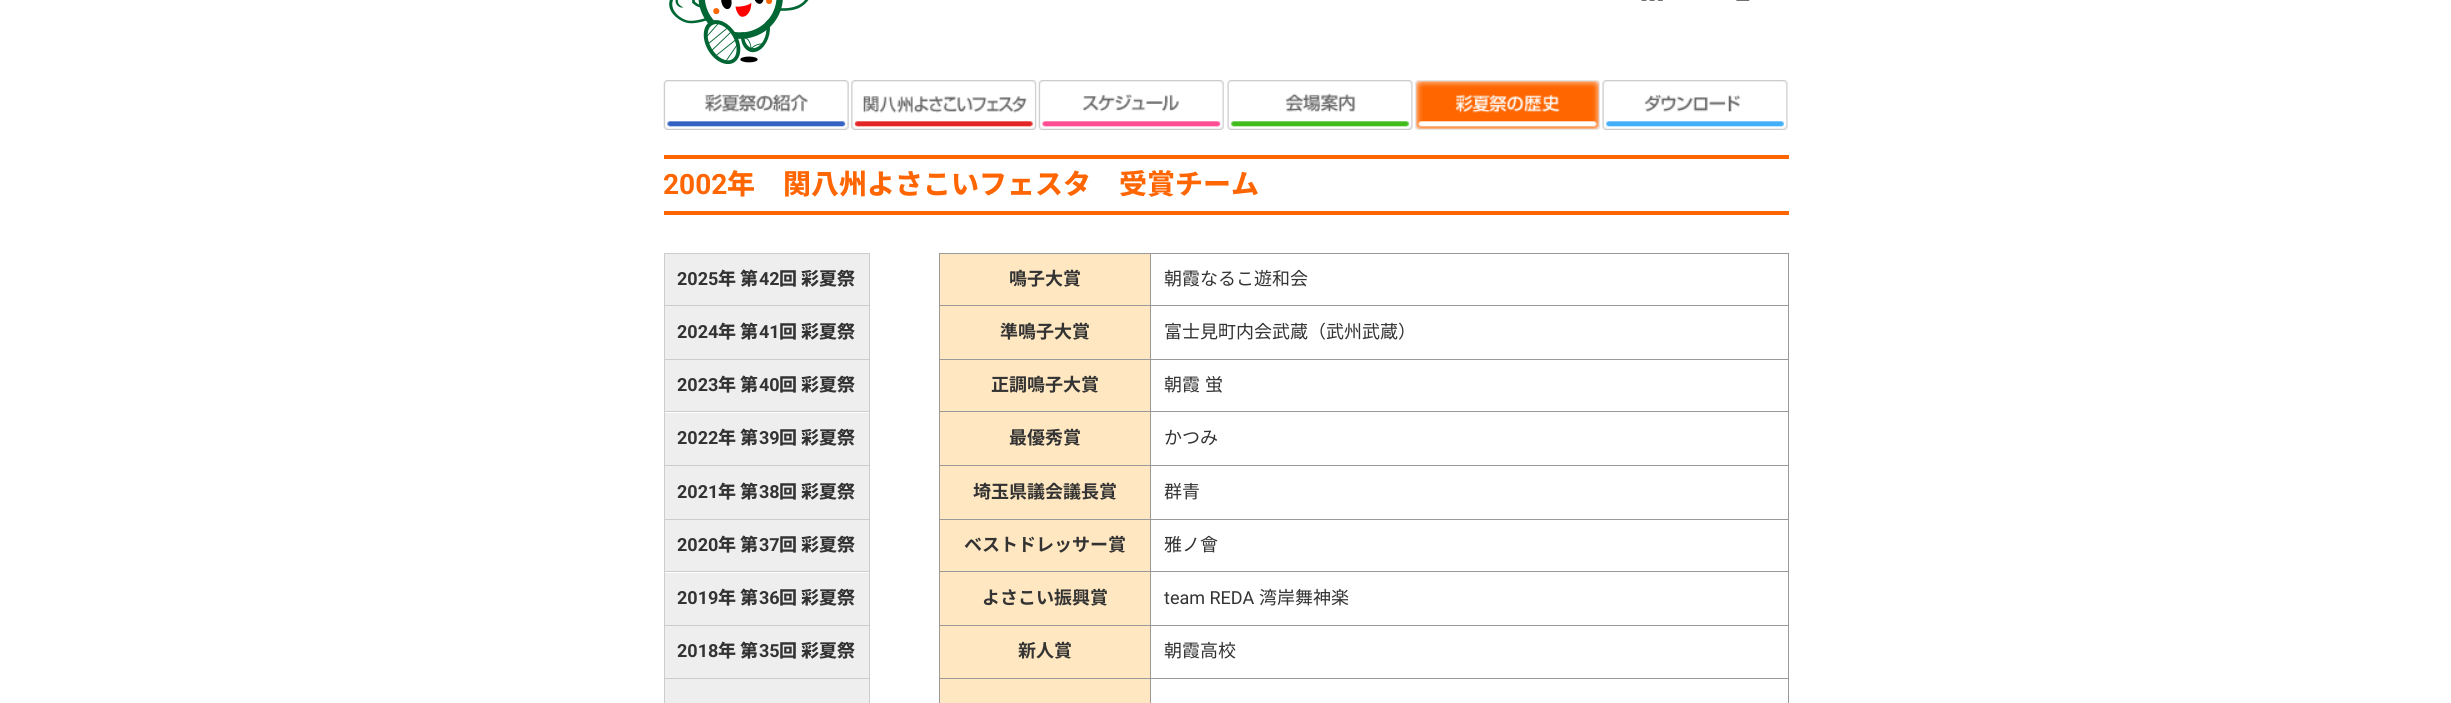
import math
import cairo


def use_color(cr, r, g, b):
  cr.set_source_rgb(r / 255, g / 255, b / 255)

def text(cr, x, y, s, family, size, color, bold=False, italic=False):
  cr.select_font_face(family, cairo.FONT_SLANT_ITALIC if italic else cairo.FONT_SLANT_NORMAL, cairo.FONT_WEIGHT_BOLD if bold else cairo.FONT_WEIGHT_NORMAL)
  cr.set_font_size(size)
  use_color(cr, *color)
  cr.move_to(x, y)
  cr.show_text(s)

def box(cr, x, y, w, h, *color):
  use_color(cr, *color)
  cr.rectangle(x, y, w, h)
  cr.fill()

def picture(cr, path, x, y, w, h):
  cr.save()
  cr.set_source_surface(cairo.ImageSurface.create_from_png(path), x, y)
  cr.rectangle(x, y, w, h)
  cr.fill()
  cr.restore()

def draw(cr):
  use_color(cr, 255, 255, 255)
  cr.paint()
  picture(cr, "img_01.png", 669, 0, 140, 64)
  picture(cr, "img_02.png", 1641, 0, 22, 1)
  picture(cr, "img_03.png", 1736, 0, 14, 1)
  picture(cr, "img_04.png", 663, 80, 186, 50)
  picture(cr, "img_05.png", 851, 80, 186, 50)
  picture(cr, "img_06.png", 1038, 80, 186, 50)
  picture(cr, "img_07.png", 1227, 80, 186, 50)
  picture(cr, "img_08.png", 1415, 80, 185, 50)
  picture(cr, "img_09.png", 1602, 80, 186, 50)
  box(cr, 664, 155, 1125, 4, 255, 101, 0)
  box(cr, 664, 211, 1125, 4, 255, 101, 0)
  box(cr, 869, 253, 1, 450, 204, 204, 204)
  box(cr, 664, 253, 1, 450, 204, 204, 204)
  box(cr, 665, 253, 204, 1, 204, 204, 204)
  box(cr, 665, 254, 204, 51, 238, 238, 238)
  box(cr, 665, 305, 204, 1, 204, 204, 204)
  box(cr, 665, 306, 204, 53, 238, 238, 238)
  box(cr, 665, 359, 204, 1, 204, 204, 204)
  box(cr, 665, 360, 204, 51, 238, 238, 238)
  box(cr, 665, 411, 204, 1, 204, 204, 204)
  box(cr, 665, 413, 204, 52, 238, 238, 238)
  box(cr, 665, 465, 204, 1, 204, 204, 204)
  box(cr, 665, 466, 204, 53, 238, 238, 238)
  box(cr, 665, 519, 204, 1, 204, 204, 204)
  box(cr, 665, 520, 204, 51, 238, 238, 238)
  box(cr, 665, 571, 204, 1, 204, 204, 204)
  box(cr, 665, 573, 204, 52, 238, 238, 238)
  box(cr, 665, 625, 204, 1, 204, 204, 204)
  box(cr, 665, 626, 204, 52, 238, 238, 238)
  box(cr, 665, 678, 204, 1, 204, 204, 204)
  box(cr, 665, 679, 204, 24, 238, 238, 238)
  box(cr, 939, 253, 850, 1, 153, 153, 153)
  box(cr, 1788, 253, 1, 450, 153, 153, 153)
  box(cr, 939, 253, 1, 450, 153, 153, 153)
  box(cr, 940, 254, 210, 51, 255, 231, 193)
  box(cr, 1150, 678, 1, 25, 153, 153, 153)
  box(cr, 1150, 678, 639, 1, 153, 153, 153)
  box(cr, 1150, 625, 1, 54, 153, 153, 153)
  box(cr, 1150, 625, 639, 1, 153, 153, 153)
  box(cr, 1150, 571, 1, 55, 153, 153, 153)
  box(cr, 1150, 571, 639, 1, 153, 153, 153)
  box(cr, 1150, 519, 1, 54, 153, 153, 153)
  box(cr, 1150, 519, 639, 1, 153, 153, 153)
  box(cr, 1150, 465, 1, 55, 153, 153, 153)
  box(cr, 1150, 465, 639, 1, 153, 153, 153)
  box(cr, 1150, 411, 1, 55, 153, 153, 153)
  box(cr, 1150, 411, 639, 1, 153, 153, 153)
  box(cr, 1150, 359, 1, 54, 153, 153, 153)
  box(cr, 1150, 359, 639, 1, 153, 153, 153)
  box(cr, 1150, 305, 1, 55, 153, 153, 153)
  box(cr, 1150, 305, 639, 1, 153, 153, 153)
  box(cr, 1150, 253, 1, 53, 153, 153, 153)
  box(cr, 939, 305, 212, 1, 153, 153, 153)
  box(cr, 940, 306, 210, 53, 255, 231, 193)
  box(cr, 939, 359, 212, 1, 153, 153, 153)
  box(cr, 940, 360, 210, 105, 255, 231, 193)
  box(cr, 939, 411, 212, 1, 153, 153, 153)
  box(cr, 939, 465, 212, 1, 153, 153, 153)
  box(cr, 940, 466, 210, 53, 255, 231, 193)
  box(cr, 939, 519, 212, 1, 153, 153, 153)
  box(cr, 940, 520, 210, 105, 255, 231, 193)
  box(cr, 939, 571, 212, 1, 153, 153, 153)
  box(cr, 939, 625, 212, 1, 153, 153, 153)
  box(cr, 940, 626, 210, 52, 255, 231, 193)
  box(cr, 939, 678, 212, 1, 153, 153, 153)
  box(cr, 940, 679, 210, 24, 255, 231, 193)
  text(cr, 663, 194, "2002", "Roboto", 28, (255, 101, 0), bold=True)
  text(cr, 727, 194, "年　関八州よさこいフェスタ　受賞チーム", "Noto Sans JP ExtraBold", 28, (255, 101, 0))
  text(cr, 677, 285, "2025", "Roboto", 18, (51, 51, 51), bold=True)
  text(cr, 718, 285, "年 第", "Noto Sans JP ExtraBold", 18, (51, 51, 51))
  text(cr, 759, 285, "42", "Roboto", 18, (51, 51, 51), bold=True)
  text(cr, 779, 285, "回 彩夏祭", "Noto Sans JP ExtraBold", 18, (51, 51, 51))
  text(cr, 677, 338, "2024", "Roboto", 18, (51, 51, 51), bold=True)
  text(cr, 718, 338, "年 第", "Noto Sans JP ExtraBold", 18, (51, 51, 51))
  text(cr, 759, 338, "41", "Roboto", 18, (51, 51, 51), bold=True)
  text(cr, 779, 338, "回 彩夏祭", "Noto Sans JP ExtraBold", 18, (51, 51, 51))
  text(cr, 677, 391, "2023", "Roboto", 18, (51, 51, 51), bold=True)
  text(cr, 718, 391, "年 第", "Noto Sans JP ExtraBold", 18, (51, 51, 51))
  text(cr, 759, 391, "40", "Roboto", 18, (51, 51, 51), bold=True)
  text(cr, 779, 391, "回 彩夏祭", "Noto Sans JP ExtraBold", 18, (51, 51, 51))
  text(cr, 677, 444, "2022", "Roboto", 18, (51, 51, 51), bold=True)
  text(cr, 718, 444, "年 第", "Noto Sans JP ExtraBold", 18, (51, 51, 51))
  text(cr, 759, 444, "39", "Roboto", 18, (51, 51, 51), bold=True)
  text(cr, 779, 444, "回 彩夏祭", "Noto Sans JP ExtraBold", 18, (51, 51, 51))
  text(cr, 677, 498, "2021", "Roboto", 18, (51, 51, 51), bold=True)
  text(cr, 718, 498, "年 第", "Noto Sans JP ExtraBold", 18, (51, 51, 51))
  text(cr, 759, 498, "38", "Roboto", 18, (51, 51, 51), bold=True)
  text(cr, 779, 498, "回 彩夏祭", "Noto Sans JP ExtraBold", 18, (51, 51, 51))
  text(cr, 677, 551, "2020", "Roboto", 18, (51, 51, 51), bold=True)
  text(cr, 718, 551, "年 第", "Noto Sans JP ExtraBold", 18, (51, 51, 51))
  text(cr, 759, 551, "37", "Roboto", 18, (51, 51, 51), bold=True)
  text(cr, 779, 551, "回 彩夏祭", "Noto Sans JP ExtraBold", 18, (51, 51, 51))
  text(cr, 677, 604, "2019", "Roboto", 18, (51, 51, 51), bold=True)
  text(cr, 718, 604, "年 第", "Noto Sans JP ExtraBold", 18, (51, 51, 51))
  text(cr, 759, 604, "36", "Roboto", 18, (51, 51, 51), bold=True)
  text(cr, 779, 604, "回 彩夏祭", "Noto Sans JP ExtraBold", 18, (51, 51, 51))
  text(cr, 677, 657, "2018", "Roboto", 18, (51, 51, 51), bold=True)
  text(cr, 718, 657, "年 第", "Noto Sans JP ExtraBold", 18, (51, 51, 51))
  text(cr, 759, 657, "35", "Roboto", 18, (51, 51, 51), bold=True)
  text(cr, 779, 657, "回 彩夏祭", "Noto Sans JP ExtraBold", 18, (51, 51, 51))
  text(cr, 1009, 285, "鳴子大賞", "Noto Sans JP", 18, (51, 51, 51), bold=True)
  text(cr, 1164, 285, "朝霞なるこ遊和会", "Noto Sans JP", 18, (51, 51, 51))
  text(cr, 1000, 338, "準鳴子大賞", "Noto Sans JP", 18, (51, 51, 51), bold=True)
  text(cr, 1164, 338, "富士見町内会武蔵（武州武蔵）", "Noto Sans JP", 18, (51, 51, 51))
  text(cr, 991, 391, "正調鳴子大賞", "Noto Sans JP", 18, (51, 51, 51), bold=True)
  text(cr, 1164, 391, "朝霞", "Noto Sans JP", 18, (51, 51, 51))
  text(cr, 1205, 391, "蛍", "Noto Sans JP", 18, (51, 51, 51))
  text(cr, 1009, 444, "最優秀賞", "Noto Sans JP", 18, (51, 51, 51), bold=True)
  text(cr, 1164, 444, "かつみ", "Noto Sans JP", 18, (51, 51, 51))
  text(cr, 973, 498, "埼玉県議会議長賞", "Noto Sans JP", 18, (51, 51, 51), bold=True)
  text(cr, 1164, 498, "群青", "Noto Sans JP", 18, (51, 51, 51))
  text(cr, 964, 551, "ベストドレッサー賞", "Noto Sans JP", 18, (51, 51, 51), bold=True)
  text(cr, 1164, 551, "雅ノ會", "Noto Sans JP", 18, (51, 51, 51))
  text(cr, 982, 604, "よさこい振興賞", "Noto Sans JP", 18, (51, 51, 51), bold=True)
  text(cr, 1164, 604, "team REDA", "Roboto", 18, (51, 51, 51))
  text(cr, 1259, 604, "湾岸舞神楽", "Noto Sans JP", 18, (51, 51, 51))
  text(cr, 1018, 657, "新人賞", "Noto Sans JP", 18, (51, 51, 51), bold=True)
  text(cr, 1164, 657, "朝霞高校", "Noto Sans JP", 18, (51, 51, 51))


surface = cairo.ImageSurface(cairo.FORMAT_RGB24, 2451, 703)
cr = cairo.Context(surface)
options = cairo.FontOptions()
options.set_hint_metrics(cairo.HINT_METRICS_OFF)
options.set_hint_style(cairo.HINT_STYLE_NONE)
cr.set_font_options(options)
cr.set_miter_limit(4)
draw(cr)
surface.write_to_png("out.png")
